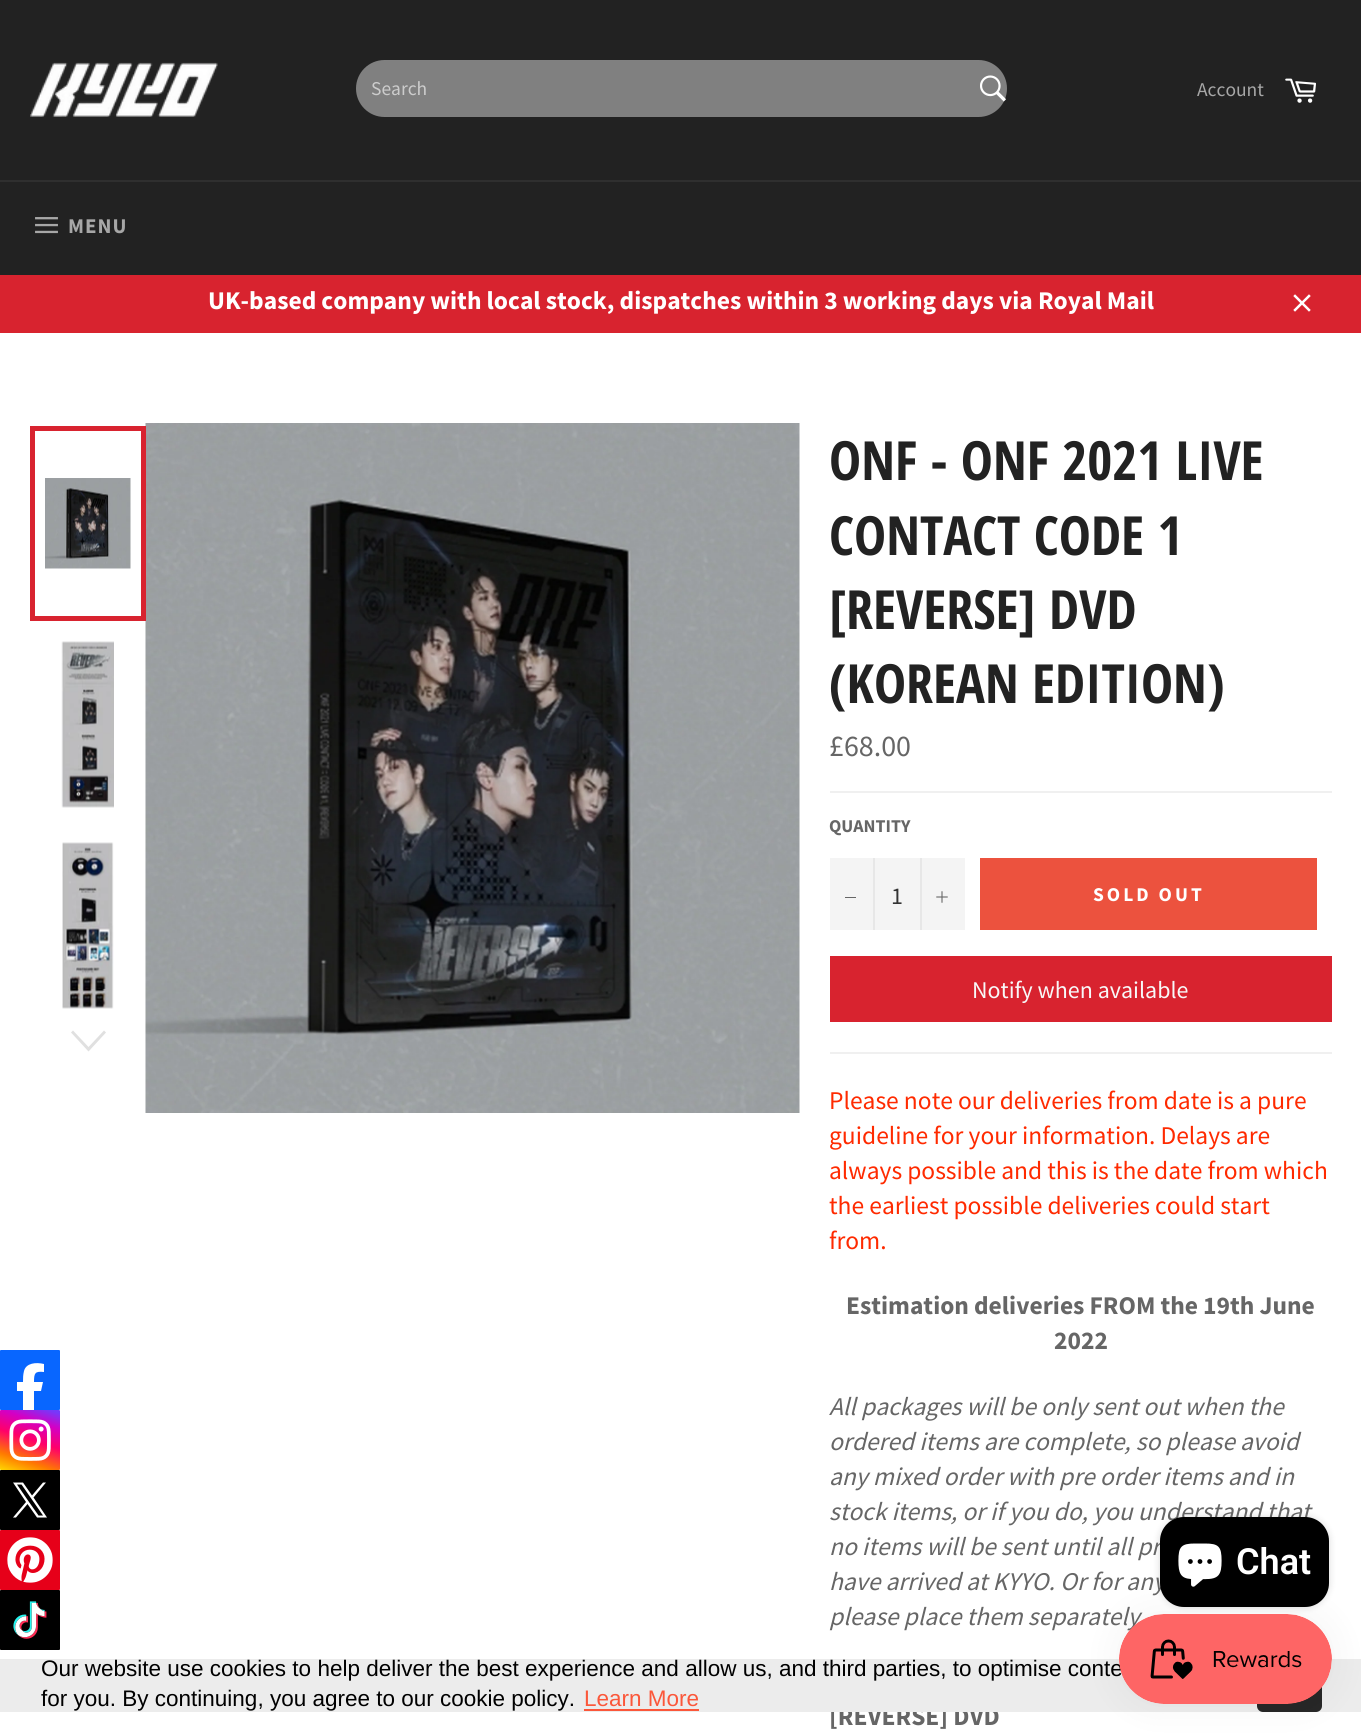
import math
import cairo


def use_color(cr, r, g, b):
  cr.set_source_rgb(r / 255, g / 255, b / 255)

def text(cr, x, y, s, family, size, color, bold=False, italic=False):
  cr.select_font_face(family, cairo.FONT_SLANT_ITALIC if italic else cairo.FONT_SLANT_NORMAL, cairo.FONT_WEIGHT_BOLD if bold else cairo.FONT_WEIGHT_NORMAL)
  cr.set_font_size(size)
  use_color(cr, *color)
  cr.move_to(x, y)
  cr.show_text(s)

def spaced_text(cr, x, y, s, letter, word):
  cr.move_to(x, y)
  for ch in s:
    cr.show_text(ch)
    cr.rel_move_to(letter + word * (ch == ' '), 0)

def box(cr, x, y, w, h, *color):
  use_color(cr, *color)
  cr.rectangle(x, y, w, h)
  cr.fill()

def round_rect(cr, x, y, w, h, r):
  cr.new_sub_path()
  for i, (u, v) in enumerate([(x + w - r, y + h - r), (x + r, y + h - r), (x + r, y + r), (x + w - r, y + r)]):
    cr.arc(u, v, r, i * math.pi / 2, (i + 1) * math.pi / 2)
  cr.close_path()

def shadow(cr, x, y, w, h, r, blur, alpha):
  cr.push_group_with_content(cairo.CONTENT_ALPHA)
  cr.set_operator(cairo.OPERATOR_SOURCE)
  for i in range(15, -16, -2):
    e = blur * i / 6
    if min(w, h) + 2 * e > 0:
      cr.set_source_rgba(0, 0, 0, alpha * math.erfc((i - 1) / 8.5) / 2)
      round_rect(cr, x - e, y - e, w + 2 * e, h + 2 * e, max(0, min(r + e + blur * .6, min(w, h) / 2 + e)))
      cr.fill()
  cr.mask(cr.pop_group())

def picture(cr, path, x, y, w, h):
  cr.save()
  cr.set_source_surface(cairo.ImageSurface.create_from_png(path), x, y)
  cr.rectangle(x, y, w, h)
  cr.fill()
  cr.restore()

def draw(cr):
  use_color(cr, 34, 34, 34)
  cr.paint()
  picture(cr, "img_01.png", 30, 62, 188, 55)
  use_color(cr, 128, 128, 128)
  round_rect(cr, 356, 60, 651, 57, 28.5)
  cr.fill()
  picture(cr, "img_02.png", 980, 75, 26, 27)
  picture(cr, "img_03.png", 1285, 78, 31, 25)
  box(cr, 0, 180, 1361, 2, 47, 47, 47)
  picture(cr, "img_04.png", 35, 217, 23, 17)
  box(cr, 0, 275, 1361, 58, 216, 35, 47)
  picture(cr, "img_05.png", 1293, 294, 18, 18)
  box(cr, 0, 333, 1361, 1401, 255, 255, 255)
  use_color(cr, 8, 102, 255)
  round_rect(cr, 0, 1350, 60, 60, 1)
  cr.fill()
  use_color(cr, 255, 255, 255)
  cr.new_path()
  cr.move_to(41, 1391)
  cr.line_to(34, 1391)
  cr.line_to(34, 1410)
  cr.line_to(23, 1410)
  cr.line_to(23, 1391)
  cr.line_to(17, 1391)
  cr.line_to(17, 1382)
  cr.line_to(23, 1382)
  cr.curve_to(23, 1378, 23, 1375, 24, 1371)
  cr.curve_to(26, 1363, 36, 1362, 44, 1364)
  cr.line_to(44, 1372)
  cr.curve_to(35, 1371, 34, 1373, 34, 1382)
  cr.line_to(43, 1382)
  cr.close_path()
  cr.fill()
  picture(cr, "img_06.png", 0, 1410, 60, 60)
  use_color(cr, 0, 0, 0)
  round_rect(cr, 0, 1470, 60, 60, 1)
  cr.fill()
  use_color(cr, 255, 255, 255)
  cr.new_path()
  cr.move_to(33.5, 1497.5)
  cr.line_to(46, 1482.5)
  cr.line_to(43, 1482.5)
  cr.line_to(32, 1495.5)
  cr.line_to(23, 1482.5)
  cr.line_to(13, 1482.5)
  cr.line_to(26, 1502)
  cr.line_to(13, 1517.5)
  cr.line_to(16, 1517.5)
  cr.line_to(27.5, 1504)
  cr.line_to(37, 1517.5)
  cr.line_to(47, 1517.5)
  cr.close_path()
  cr.move_to(29, 1502)
  cr.line_to(17, 1484.5)
  cr.line_to(21.5, 1484.5)
  cr.line_to(43, 1515.5)
  cr.line_to(38.5, 1515.5)
  cr.close_path()
  cr.fill()
  picture(cr, "img_07.png", 0, 1530, 60, 60)
  picture(cr, "img_08.png", 0, 1590, 60, 60)
  picture(cr, "img_09.png", 45, 478, 86, 91)
  picture(cr, "img_12.png", 145, 423, 655, 690)
  cr.rectangle(32.5, 428.5, 111, 190)
  use_color(cr, 216, 35, 47)
  cr.set_line_width(5)
  cr.stroke()
  picture(cr, "img_10.png", 61, 641, 53, 167)
  picture(cr, "img_11.png", 62, 842, 52, 167)
  use_color(cr, 224, 224, 224)
  cr.new_path()
  cr.move_to(104, 1030.5)
  cr.line_to(106, 1032.5)
  cr.line_to(88.5, 1051.5)
  cr.line_to(71, 1032.5)
  cr.line_to(73, 1030.5)
  cr.line_to(88.5, 1047)
  cr.close_path()
  cr.fill()
  box(cr, 830, 791, 502, 2, 240, 240, 240)
  box(cr, 830, 858, 135, 72, 244, 244, 244)
  box(cr, 873, 858, 2, 72, 231, 231, 231)
  box(cr, 845, 897, 11, 1, 102, 102, 102)
  box(cr, 920, 858, 2, 72, 231, 231, 231)
  picture(cr, "img_13.png", 936, 891, 12, 12)
  box(cr, 980, 858, 337, 72, 236, 82, 62)
  box(cr, 830, 956, 502, 66, 216, 35, 47)
  box(cr, 830, 1052, 502, 2, 240, 240, 240)
  use_color(cr, 0, 0, 0)
  shadow(cr, 1160, 1517, 169, 90, 24, 4, 0.15)
  text(cr, 371, 95, "Search", "Source Sans Pro", 19.5, (204, 204, 204))
  text(cr, 1197, 96, "Account", "Source Sans Pro", 19.5, (167, 167, 167))
  cr.select_font_face("Source Sans Pro", cairo.FONT_SLANT_NORMAL, cairo.FONT_WEIGHT_BOLD)
  cr.set_font_size(21)
  spaced_text(cr, 68, 233, "MENU", 1, 0)
  text(cr, 208, 309, "UK-based company with local stock, dispatches within 3 working days via Royal Mail", "Source Sans Pro", 25.5, (255, 255, 255), bold=True)
  text(cr, 829, 480, "ONF - ONF 2021 LIVE", "Open Sans Condensed", 54, (34, 34, 34), bold=True)
  text(cr, 829, 555, "CONTACT CODE 1", "Open Sans Condensed", 54, (34, 34, 34), bold=True)
  text(cr, 829, 629, "[REVERSE] DVD", "Open Sans Condensed", 54, (34, 34, 34), bold=True)
  text(cr, 829, 703, "(KOREAN EDITION)", "Open Sans Condensed", 54, (34, 34, 34), bold=True)
  text(cr, 829, 756, "£68.00", "Source Sans Pro", 30, (102, 102, 102))
  text(cr, 829, 832, "QUANTITY", "Source Sans Pro", 18, (102, 102, 102), bold=True)
  text(cr, 891, 904, "1", "Source Sans Pro", 24, (51, 51, 51))
  cr.select_font_face("Source Sans Pro", cairo.FONT_SLANT_NORMAL, cairo.FONT_WEIGHT_BOLD)
  cr.set_font_size(19.5)
  use_color(cr, 255, 255, 255)
  spaced_text(cr, 1093, 901, "SOLD OUT", 3, 0)
  text(cr, 972, 998, "Notify when available", "Source Sans Pro", 24, (248, 248, 248))
  text(cr, 829, 1109, "Please note our deliveries from date is a pure", "Source Sans Pro", 25.5, (255, 42, 0))
  text(cr, 829, 1144, "guideline for your information. Delays are", "Source Sans Pro", 25.5, (255, 42, 0))
  text(cr, 829, 1179, "always possible and this is the date from which", "Source Sans Pro", 25.5, (255, 42, 0))
  text(cr, 829, 1214, "the earliest possible deliveries could start", "Source Sans Pro", 25.5, (255, 42, 0))
  text(cr, 829, 1249, "from.", "Source Sans Pro", 25.5, (255, 42, 0))
  text(cr, 846, 1314, "Estimation deliveries FROM the 19th June", "Source Sans Pro", 25.5, (102, 102, 102), bold=True)
  text(cr, 1054, 1349, "2022", "Source Sans Pro", 25.5, (102, 102, 102), bold=True)
  text(cr, 829, 1415, "All packages will be only sent out when the", "Source Sans Pro", 25.5, (102, 102, 102), italic=True)
  text(cr, 829, 1450, "ordered items are complete, so please avoid", "Source Sans Pro", 25.5, (102, 102, 102), italic=True)
  text(cr, 829, 1485, "any mixed order with pre order items and in", "Source Sans Pro", 25.5, (102, 102, 102), italic=True)
  text(cr, 829, 1520, "stock items, or if you do, you understand that", "Source Sans Pro", 25.5, (102, 102, 102), italic=True)
  text(cr, 829, 1555, "no items will be sent until all pr", "Source Sans Pro", 25.5, (102, 102, 102), italic=True)
  text(cr, 829, 1590, "have arrived at KYYO. Or for any", "Source Sans Pro", 25.5, (102, 102, 102), italic=True)
  text(cr, 829, 1625, "please place them separately", "Source Sans Pro", 25.5, (102, 102, 102), italic=True)
  text(cr, 829, 1725, "[REVERSE] DVD", "Source Sans Pro", 25.5, (102, 102, 102), bold=True)
  use_color(cr, 0, 0, 0)
  round_rect(cr, 1160, 1517, 169, 90, 24)
  cr.fill()
  picture(cr, "img_14.png", 1178, 1543, 44, 44)
  text(cr, 1236, 1574, "Chat", "Roboto SemiBold", 36, (255, 255, 255))
  box(cr, 0, 1659, 1361, 53, 236, 236, 236)
  text(cr, 41, 1676, "Our website use cookies to help deliver the best experience and allow us, and third parties, to optimise conte", "Liberation Sans", 22.5, (0, 0, 0))
  text(cr, 41, 1706, "for you. By continuing, you agree to our cookie policy.", "Liberation Sans", 22.5, (0, 0, 0))
  text(cr, 584, 1706, "Learn More", "Liberation Sans", 22.5, (251, 87, 58))
  box(cr, 584, 1709, 115, 2, 251, 87, 58)
  use_color(cr, 39, 39, 39)
  round_rect(cr, 1257, 1659, 65, 53, 6)
  cr.fill()
  use_color(cr, 0, 0, 0)
  shadow(cr, 1119, 1614, 213, 90, 45, 19, 0.05)
  picture(cr, "img_15.png", 1119, 1614, 213, 90)


surface = cairo.ImageSurface(cairo.FORMAT_RGB24, 1361, 1734)
cr = cairo.Context(surface)
options = cairo.FontOptions()
options.set_hint_metrics(cairo.HINT_METRICS_OFF)
options.set_hint_style(cairo.HINT_STYLE_NONE)
cr.set_font_options(options)
cr.set_miter_limit(4)
draw(cr)
surface.write_to_png("out.png")
